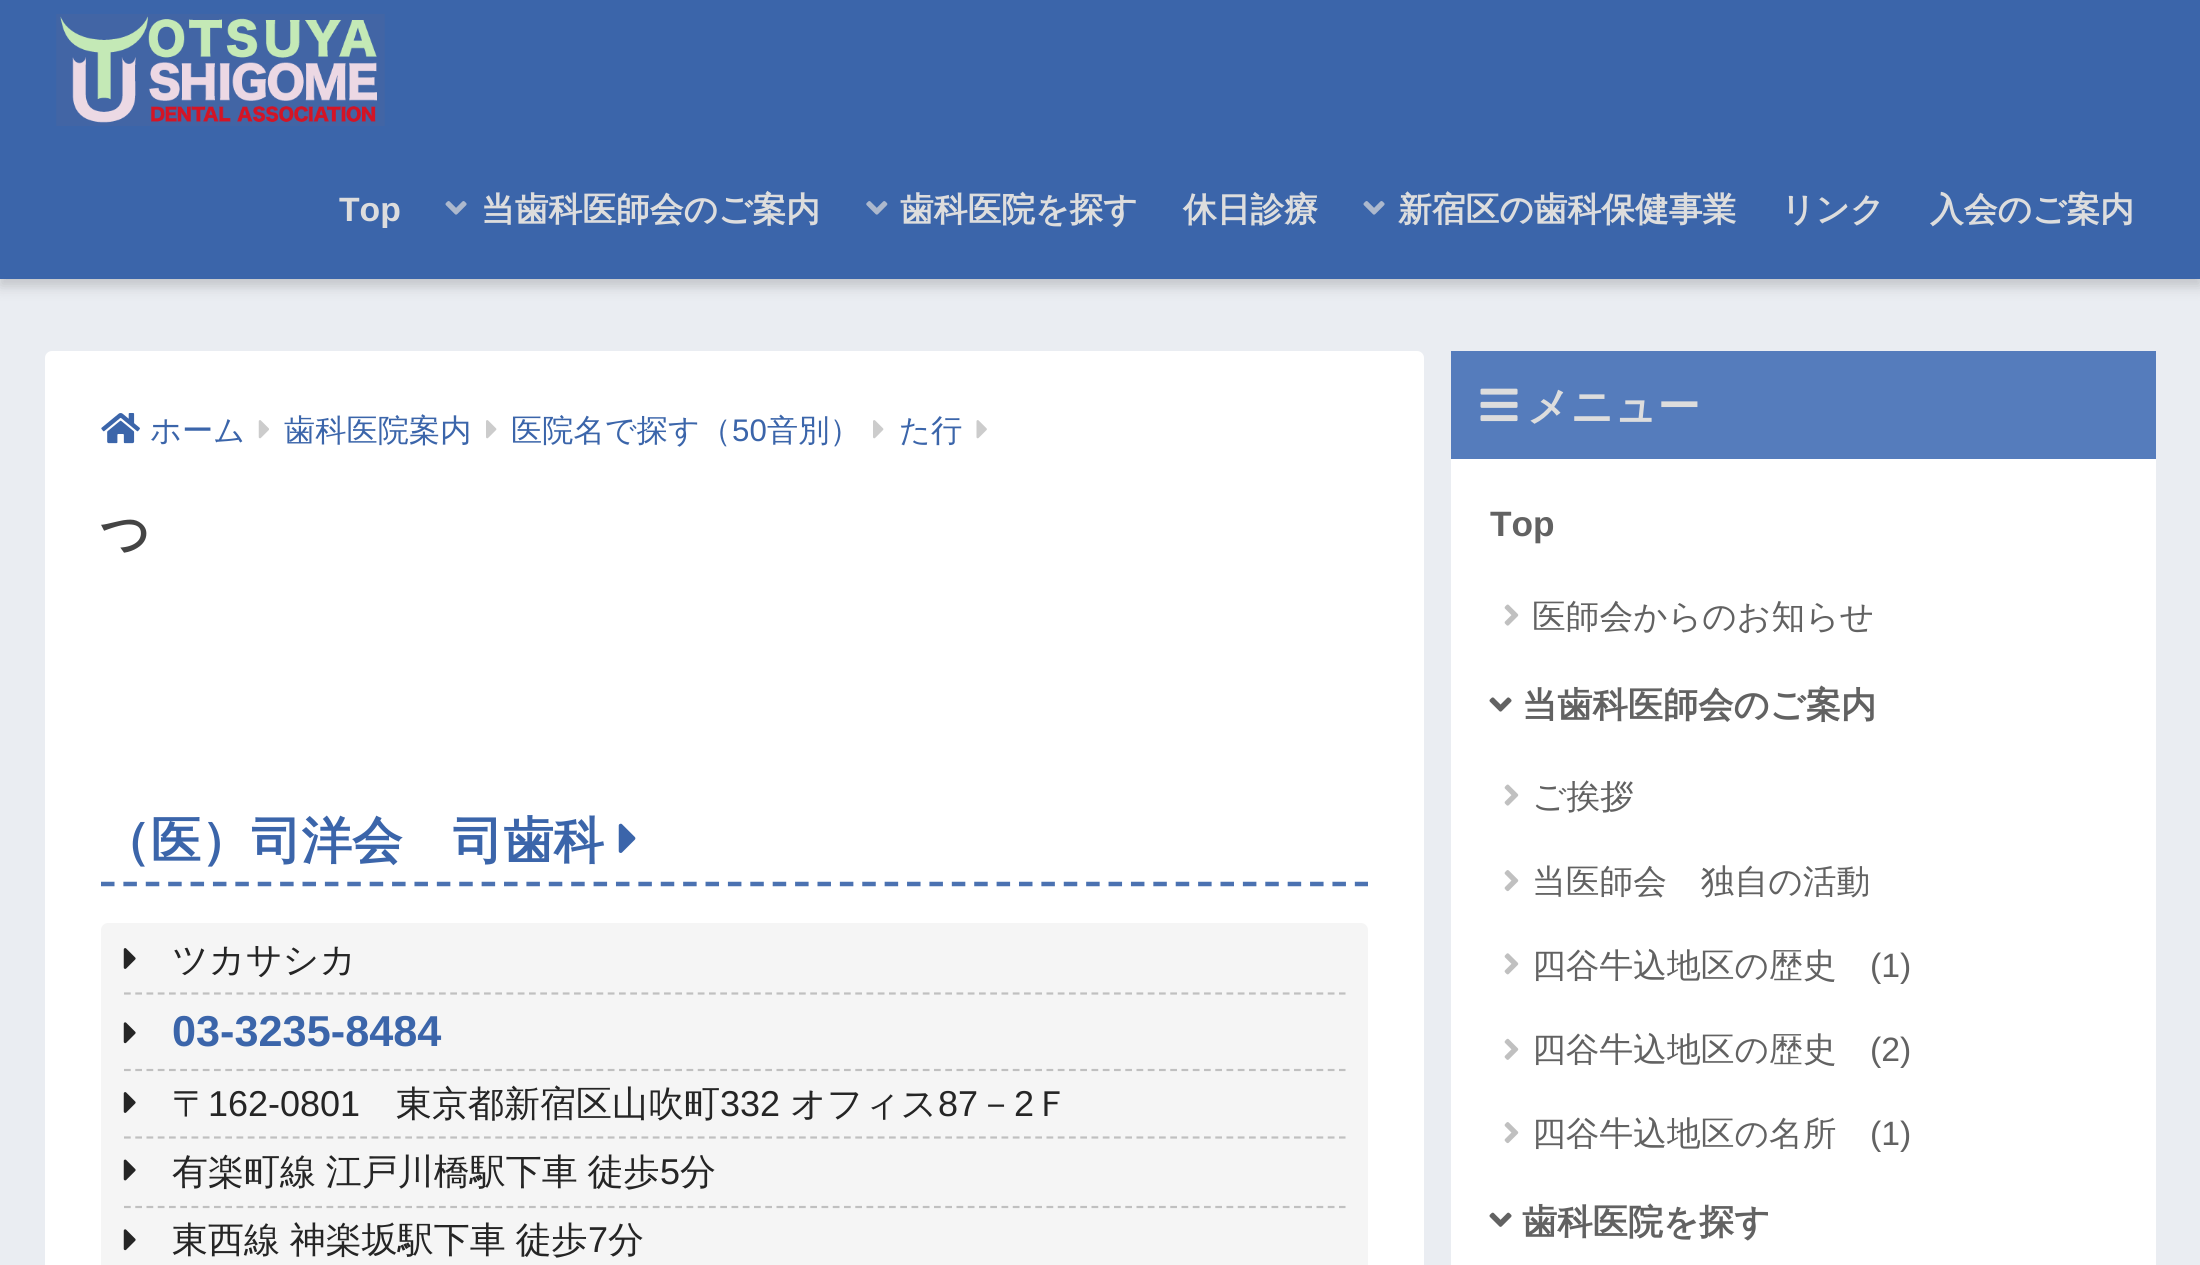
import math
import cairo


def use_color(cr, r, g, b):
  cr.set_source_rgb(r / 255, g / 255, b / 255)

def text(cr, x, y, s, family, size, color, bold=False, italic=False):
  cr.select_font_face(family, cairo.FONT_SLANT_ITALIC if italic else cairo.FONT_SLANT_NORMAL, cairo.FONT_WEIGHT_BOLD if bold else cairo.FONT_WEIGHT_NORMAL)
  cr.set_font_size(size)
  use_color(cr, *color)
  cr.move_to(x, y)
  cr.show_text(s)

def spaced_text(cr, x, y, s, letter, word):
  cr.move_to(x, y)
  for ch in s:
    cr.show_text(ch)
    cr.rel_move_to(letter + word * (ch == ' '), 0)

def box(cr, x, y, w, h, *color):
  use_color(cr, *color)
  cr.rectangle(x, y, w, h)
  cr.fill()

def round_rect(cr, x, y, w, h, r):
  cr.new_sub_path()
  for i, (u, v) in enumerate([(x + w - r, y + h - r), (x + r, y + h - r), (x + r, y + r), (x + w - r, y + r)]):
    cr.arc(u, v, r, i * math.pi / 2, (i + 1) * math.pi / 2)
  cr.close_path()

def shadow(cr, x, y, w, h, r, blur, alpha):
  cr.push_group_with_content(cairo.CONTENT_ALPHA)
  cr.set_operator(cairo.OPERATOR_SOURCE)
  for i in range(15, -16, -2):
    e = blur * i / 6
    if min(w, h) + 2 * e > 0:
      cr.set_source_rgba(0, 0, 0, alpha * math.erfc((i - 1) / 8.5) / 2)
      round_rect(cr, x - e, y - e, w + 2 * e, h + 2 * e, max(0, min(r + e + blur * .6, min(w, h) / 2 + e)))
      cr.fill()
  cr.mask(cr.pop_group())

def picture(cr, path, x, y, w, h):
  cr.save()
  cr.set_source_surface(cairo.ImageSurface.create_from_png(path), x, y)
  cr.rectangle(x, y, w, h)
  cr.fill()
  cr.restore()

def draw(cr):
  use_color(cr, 234, 237, 242)
  cr.paint()
  use_color(cr, 0, 0, 0)
  shadow(cr, 0, 7, 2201, 279, 0, 7, 0.18)
  box(cr, 0, 0, 2200, 279, 59, 101, 170)
  picture(cr, "img_01.png", 56, 14, 329, 112)
  picture(cr, "img_02.png", 445, 201, 22, 14)
  picture(cr, "img_03.png", 866, 201, 22, 14)
  picture(cr, "img_02.png", 1363, 201, 22, 14)
  use_color(cr, 255, 255, 255)
  round_rect(cr, 45, 351, 1379, 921, 7)
  cr.fill()
  picture(cr, "img_04.png", 101, 413, 39, 31)
  picture(cr, "img_05.png", 258, 420, 11, 19)
  picture(cr, "img_06.png", 486, 420, 11, 19)
  picture(cr, "img_06.png", 873, 420, 11, 19)
  picture(cr, "img_07.png", 976, 420, 11, 19)
  cr.new_path()
  cr.move_to(101, 884)
  cr.line_to(1368, 884)
  use_color(cr, 75, 114, 177)
  cr.set_line_width(4.5)
  cr.set_dash([13.5, 8.89])
  cr.stroke()
  picture(cr, "img_08.png", 618, 823, 18, 30)
  use_color(cr, 245, 245, 245)
  round_rect(cr, 101, 923, 1267, 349, 7)
  cr.fill()
  cr.new_path()
  cr.move_to(124, 993.5)
  cr.line_to(1345.5, 993.5)
  use_color(cr, 192, 192, 192)
  cr.set_line_width(2.2)
  cr.set_dash([6.75, 4.5])
  cr.stroke()
  picture(cr, "img_09.png", 123, 948, 13, 21)
  cr.new_path()
  cr.move_to(124, 1070)
  cr.line_to(1345.5, 1070)
  cr.stroke()
  picture(cr, "img_10.png", 123, 1022, 13, 22)
  cr.new_path()
  cr.move_to(124, 1137.5)
  cr.line_to(1345.5, 1137.5)
  cr.stroke()
  picture(cr, "img_09.png", 123, 1092, 13, 21)
  cr.new_path()
  cr.move_to(124, 1207)
  cr.line_to(1345.5, 1207)
  cr.stroke()
  picture(cr, "img_11.png", 123, 1159, 13, 22)
  picture(cr, "img_10.png", 123, 1229, 13, 22)
  box(cr, 1451, 459, 705, 806, 255, 255, 255)
  box(cr, 1451, 351, 705, 108, 85, 124, 188)
  picture(cr, "img_12.png", 1480, 388, 38, 34)
  picture(cr, "img_13.png", 1504, 604, 15, 22)
  picture(cr, "img_14.png", 1489, 697, 23, 15)
  picture(cr, "img_13.png", 1504, 784, 15, 22)
  picture(cr, "img_15.png", 1504, 870, 15, 22)
  picture(cr, "img_16.png", 1504, 953, 15, 22)
  picture(cr, "img_17.png", 1504, 1038, 15, 22)
  picture(cr, "img_15.png", 1504, 1122, 15, 22)
  picture(cr, "img_18.png", 1489, 1212, 23, 15)
  text(cr, 339, 221, "Top", "Liberation Sans", 33.75, (221, 221, 221), bold=True)
  text(cr, 481, 221, "当歯科医師会のご案内", "WenQuanYi Zen Hei", 33.75, (221, 221, 221), bold=True)
  text(cr, 900, 221, "歯科医院を探す", "WenQuanYi Zen Hei", 33.75, (221, 221, 221), bold=True)
  text(cr, 1183, 221, "休日診療", "WenQuanYi Zen Hei", 33.75, (221, 221, 221), bold=True)
  text(cr, 1398, 221, "新宿区の歯科保健事業", "WenQuanYi Zen Hei", 33.75, (221, 221, 221), bold=True)
  text(cr, 1781, 221, "リンク", "WenQuanYi Zen Hei", 33.75, (221, 221, 221), bold=True)
  text(cr, 1930, 221, "入会のご案内", "WenQuanYi Zen Hei", 33.75, (221, 221, 221), bold=True)
  text(cr, 150, 441, "ホーム", "WenQuanYi Zen Hei Medium", 31.25, (59, 101, 170))
  text(cr, 284, 441, "歯科医院案内", "WenQuanYi Zen Hei Medium", 31.25, (59, 101, 170))
  text(cr, 511, 441, "医院名で探す（", "WenQuanYi Zen Hei Medium", 31.25, (59, 101, 170))
  text(cr, 732, 441, "50", "Liberation Sans", 31.25, (59, 101, 170))
  text(cr, 767, 441, "音別）", "WenQuanYi Zen Hei Medium", 31.25, (59, 101, 170))
  text(cr, 899, 441, "た行", "WenQuanYi Zen Hei Medium", 31.25, (59, 101, 170))
  text(cr, 100, 550, "つ", "WenQuanYi Zen Hei", 49, (68, 68, 68), bold=True)
  text(cr, 100, 858, "（医）司洋会　司歯科", "WenQuanYi Zen Hei", 50.4, (59, 101, 170), bold=True)
  text(cr, 172, 972, "ツカサシカ", "WenQuanYi Zen Hei Medium", 36, (37, 37, 37))
  text(cr, 172, 1046, "03-3235-8484", "Liberation Sans", 43.25, (59, 101, 170), bold=True)
  text(cr, 172, 1116, "〒", "WenQuanYi Zen Hei Medium", 36, (37, 37, 37))
  text(cr, 208, 1116, "162-0801", "Liberation Sans", 36, (37, 37, 37))
  text(cr, 396, 1116, "東京都新宿区山吹町", "WenQuanYi Zen Hei Medium", 36, (37, 37, 37))
  text(cr, 720, 1116, "332", "Liberation Sans", 36, (37, 37, 37))
  text(cr, 790, 1116, "オフィス", "WenQuanYi Zen Hei Medium", 36, (37, 37, 37))
  text(cr, 938, 1116, "87", "Liberation Sans", 36, (37, 37, 37))
  text(cr, 978, 1116, "－", "WenQuanYi Zen Hei Medium", 36, (37, 37, 37))
  text(cr, 1014, 1116, "2", "Liberation Sans", 36, (37, 37, 37))
  text(cr, 1034, 1116, "Ｆ", "WenQuanYi Zen Hei Medium", 36, (37, 37, 37))
  spaced_text(cr, 172, 1184, "有楽町線 江戸川橋駅下車 徒歩", 0, -1)
  text(cr, 660, 1184, "5", "Liberation Sans", 36, (37, 37, 37))
  text(cr, 680, 1184, "分", "WenQuanYi Zen Hei Medium", 36, (37, 37, 37))
  spaced_text(cr, 172, 1252, "東西線 神楽坂駅下車 徒歩", 0, -1)
  text(cr, 588, 1252, "7", "Liberation Sans", 36, (37, 37, 37))
  text(cr, 608, 1252, "分", "WenQuanYi Zen Hei Medium", 36, (37, 37, 37))
  text(cr, 1527, 421, "メニュー", "WenQuanYi Zen Hei", 42.5, (221, 221, 221), bold=True)
  text(cr, 1490, 536, "Top", "Liberation Sans", 35.25, (98, 98, 98), bold=True)
  text(cr, 1532, 628, "医師会からのお知らせ", "WenQuanYi Zen Hei Medium", 33.75, (98, 98, 98))
  text(cr, 1522, 717, "当歯科医師会のご案内", "WenQuanYi Zen Hei", 35.25, (98, 98, 98), bold=True)
  text(cr, 1532, 808, "ご挨拶", "WenQuanYi Zen Hei Medium", 33.75, (98, 98, 98))
  text(cr, 1532, 893, "当医師会　独自の活動", "WenQuanYi Zen Hei Medium", 33.75, (98, 98, 98))
  text(cr, 1532, 977, "四谷牛込地区の歴史", "WenQuanYi Zen Hei Medium", 33.75, (98, 98, 98))
  text(cr, 1870, 977, "(1)", "Liberation Sans", 33.75, (98, 98, 98))
  text(cr, 1532, 1061, "四谷牛込地区の歴史", "WenQuanYi Zen Hei Medium", 33.75, (98, 98, 98))
  text(cr, 1870, 1061, "(2)", "Liberation Sans", 33.75, (98, 98, 98))
  text(cr, 1532, 1145, "四谷牛込地区の名所", "WenQuanYi Zen Hei Medium", 33.75, (98, 98, 98))
  text(cr, 1870, 1145, "(1)", "Liberation Sans", 33.75, (98, 98, 98))
  text(cr, 1522, 1234, "歯科医院を探す", "WenQuanYi Zen Hei", 35.25, (98, 98, 98), bold=True)


surface = cairo.ImageSurface(cairo.FORMAT_RGB24, 2200, 1265)
cr = cairo.Context(surface)
options = cairo.FontOptions()
options.set_hint_metrics(cairo.HINT_METRICS_OFF)
options.set_hint_style(cairo.HINT_STYLE_NONE)
cr.set_font_options(options)
cr.set_miter_limit(4)
draw(cr)
surface.write_to_png("out.png")
